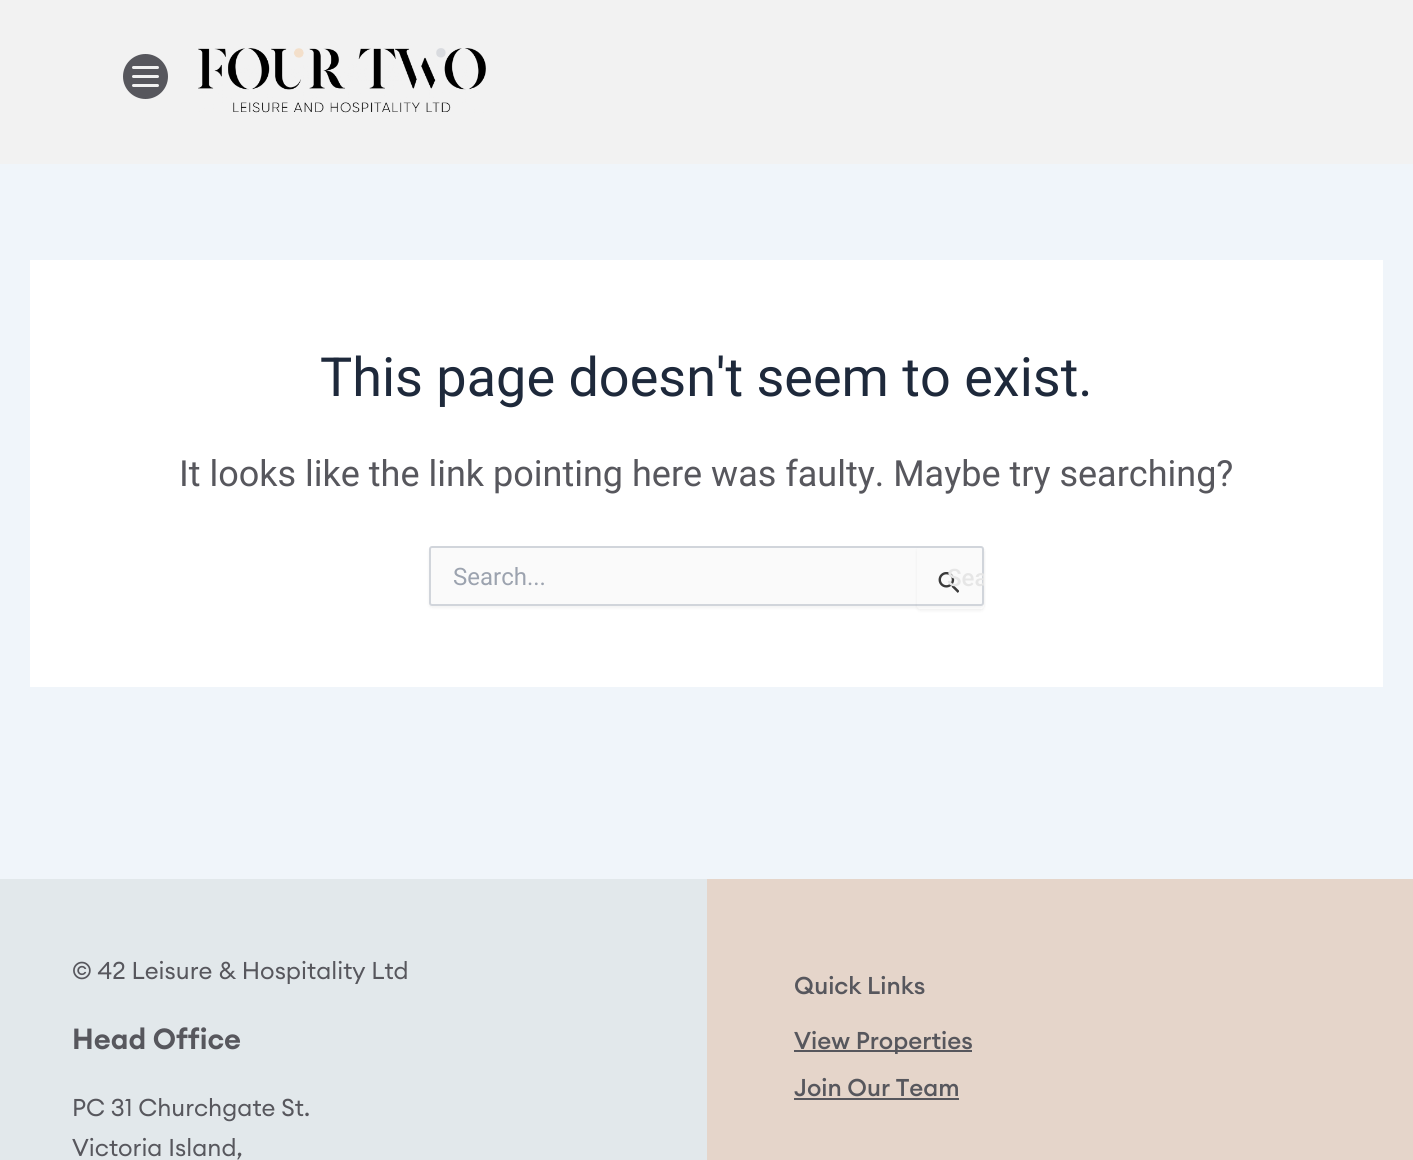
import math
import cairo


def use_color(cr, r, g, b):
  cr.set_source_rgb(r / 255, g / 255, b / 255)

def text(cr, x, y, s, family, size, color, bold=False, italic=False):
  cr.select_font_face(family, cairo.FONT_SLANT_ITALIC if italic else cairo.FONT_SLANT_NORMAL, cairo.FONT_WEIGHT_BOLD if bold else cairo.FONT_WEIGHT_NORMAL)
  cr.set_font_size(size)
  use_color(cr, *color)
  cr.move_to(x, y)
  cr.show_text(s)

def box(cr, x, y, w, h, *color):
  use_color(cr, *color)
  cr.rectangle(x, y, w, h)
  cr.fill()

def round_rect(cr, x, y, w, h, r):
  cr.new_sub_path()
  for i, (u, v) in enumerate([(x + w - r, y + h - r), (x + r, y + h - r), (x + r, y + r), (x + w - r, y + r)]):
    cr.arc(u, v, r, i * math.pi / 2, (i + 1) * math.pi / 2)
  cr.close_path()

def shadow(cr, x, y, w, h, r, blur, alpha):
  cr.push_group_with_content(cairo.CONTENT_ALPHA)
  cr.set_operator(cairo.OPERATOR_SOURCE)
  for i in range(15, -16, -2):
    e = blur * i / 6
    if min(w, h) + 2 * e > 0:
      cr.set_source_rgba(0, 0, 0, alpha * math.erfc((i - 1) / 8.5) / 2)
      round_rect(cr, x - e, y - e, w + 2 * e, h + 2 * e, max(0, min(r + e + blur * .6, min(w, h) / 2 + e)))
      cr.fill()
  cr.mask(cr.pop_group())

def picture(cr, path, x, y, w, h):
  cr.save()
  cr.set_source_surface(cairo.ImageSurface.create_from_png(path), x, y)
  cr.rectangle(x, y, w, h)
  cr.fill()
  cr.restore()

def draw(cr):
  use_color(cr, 240, 245, 250)
  cr.paint()
  box(cr, 0, 0, 1413, 164, 242, 242, 242)
  picture(cr, "img_01.png", 123, 54, 45, 45)
  picture(cr, "img_02.png", 198, 48, 288, 65)
  box(cr, 30, 260, 1353, 427, 255, 255, 255)
  use_color(cr, 0, 0, 0)
  shadow(cr, 429, 548, 555, 60, 3, 1.5, 0.05)
  use_color(cr, 250, 250, 250)
  round_rect(cr, 430, 547, 553, 58, 2)
  cr.fill_preserve()
  use_color(cr, 209, 213, 219)
  cr.stroke()
  picture(cr, "img_03.png", 938, 572, 21, 21)
  cr.save()
  cr.set_fill_rule(cairo.FILL_RULE_EVEN_ODD)
  cr.new_path()
  cr.move_to(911, 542)
  cr.line_to(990, 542)
  cr.line_to(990, 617)
  cr.line_to(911, 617)
  cr.close_path()
  cr.move_to(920, 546)
  cr.line_to(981, 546)
  cr.curve_to(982.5, 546, 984, 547.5, 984, 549)
  cr.line_to(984, 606)
  cr.curve_to(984, 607.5, 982.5, 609, 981, 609)
  cr.line_to(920, 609)
  cr.curve_to(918.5, 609, 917, 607.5, 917, 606)
  cr.line_to(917, 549)
  cr.curve_to(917, 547.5, 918.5, 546, 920, 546)
  cr.close_path()
  cr.clip()
  use_color(cr, 0, 0, 0)
  shadow(cr, 917, 548, 67, 63, 3, 1.5, 0.05)
  cr.restore()
  box(cr, 0, 879, 707, 281, 226, 232, 235)
  box(cr, 707, 879, 706, 281, 229, 213, 202)
  box(cr, 794, 1050, 178, 2, 87, 87, 93)
  box(cr, 794, 1098, 165, 2, 87, 87, 93)
  text(cr, 320, 396, "This page doesn't seem to exist.", "Roboto", 54, (30, 41, 59))
  text(cr, 179, 486, "It looks like the link pointing here was faulty. Maybe try searching?", "Roboto", 36, (87, 87, 93))
  text(cr, 453, 585, "Search...", "Roboto", 24, (156, 163, 175))
  cr.save()
  round_rect(cr, 917, 546, 67, 63, 3)
  cr.clip()
  text(cr, 947, 586, "Sea", "Roboto Medium", 24, (230, 230, 230))
  cr.restore()
  text(cr, 72, 979, "© 42 Leisure & Hospitality Ltd", "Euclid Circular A", 24, (87, 87, 93))
  text(cr, 72, 1049, "Head Office", "Euclid Circular A SemiBold", 28.75, (87, 87, 93))
  text(cr, 72, 1116, "PC 31 Churchgate St.", "Euclid Circular A", 24, (87, 87, 93))
  text(cr, 72, 1156, "Victoria Island,", "Euclid Circular A", 24, (87, 87, 93))
  text(cr, 794, 994, "Quick Links", "Euclid Circular A Medium", 24, (87, 87, 93))
  text(cr, 794, 1049, "View Properties", "Euclid Circular A Medium", 24, (87, 87, 93))
  text(cr, 794, 1096, "Join Our Team", "Euclid Circular A Medium", 24, (87, 87, 93))


surface = cairo.ImageSurface(cairo.FORMAT_RGB24, 1413, 1160)
cr = cairo.Context(surface)
options = cairo.FontOptions()
options.set_hint_metrics(cairo.HINT_METRICS_OFF)
options.set_hint_style(cairo.HINT_STYLE_NONE)
cr.set_font_options(options)
cr.set_miter_limit(4)
draw(cr)
surface.write_to_png("out.png")
